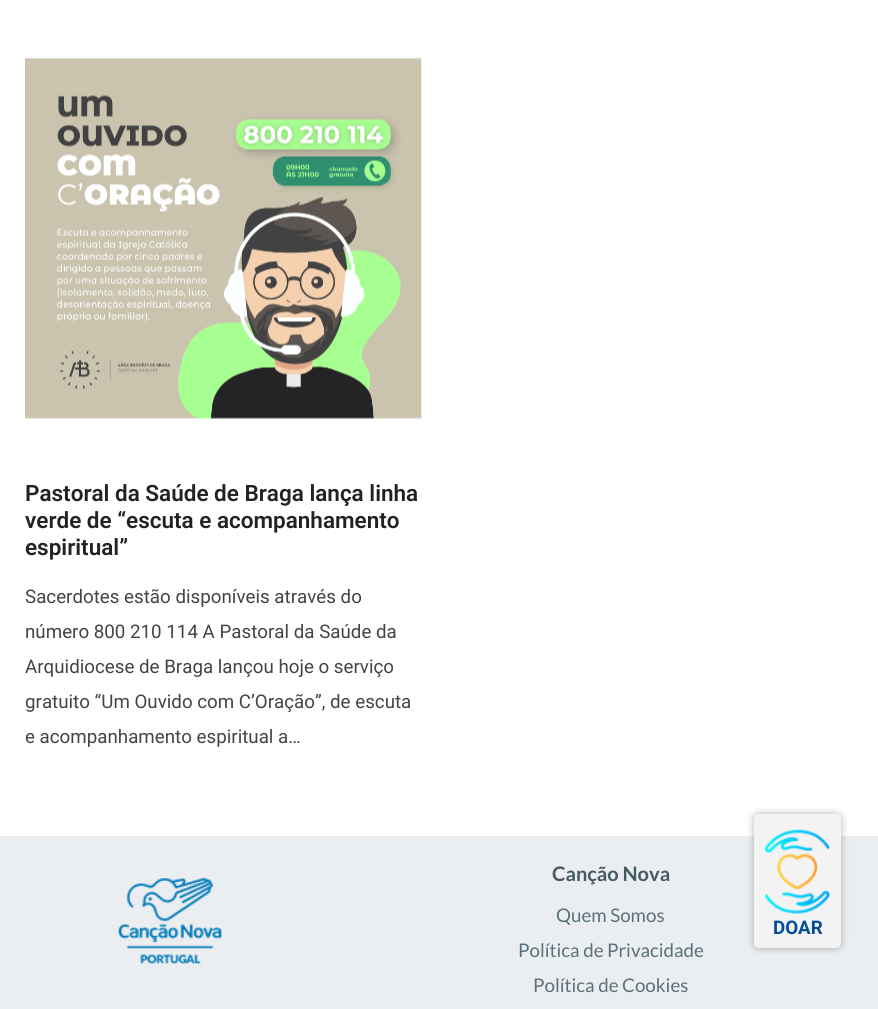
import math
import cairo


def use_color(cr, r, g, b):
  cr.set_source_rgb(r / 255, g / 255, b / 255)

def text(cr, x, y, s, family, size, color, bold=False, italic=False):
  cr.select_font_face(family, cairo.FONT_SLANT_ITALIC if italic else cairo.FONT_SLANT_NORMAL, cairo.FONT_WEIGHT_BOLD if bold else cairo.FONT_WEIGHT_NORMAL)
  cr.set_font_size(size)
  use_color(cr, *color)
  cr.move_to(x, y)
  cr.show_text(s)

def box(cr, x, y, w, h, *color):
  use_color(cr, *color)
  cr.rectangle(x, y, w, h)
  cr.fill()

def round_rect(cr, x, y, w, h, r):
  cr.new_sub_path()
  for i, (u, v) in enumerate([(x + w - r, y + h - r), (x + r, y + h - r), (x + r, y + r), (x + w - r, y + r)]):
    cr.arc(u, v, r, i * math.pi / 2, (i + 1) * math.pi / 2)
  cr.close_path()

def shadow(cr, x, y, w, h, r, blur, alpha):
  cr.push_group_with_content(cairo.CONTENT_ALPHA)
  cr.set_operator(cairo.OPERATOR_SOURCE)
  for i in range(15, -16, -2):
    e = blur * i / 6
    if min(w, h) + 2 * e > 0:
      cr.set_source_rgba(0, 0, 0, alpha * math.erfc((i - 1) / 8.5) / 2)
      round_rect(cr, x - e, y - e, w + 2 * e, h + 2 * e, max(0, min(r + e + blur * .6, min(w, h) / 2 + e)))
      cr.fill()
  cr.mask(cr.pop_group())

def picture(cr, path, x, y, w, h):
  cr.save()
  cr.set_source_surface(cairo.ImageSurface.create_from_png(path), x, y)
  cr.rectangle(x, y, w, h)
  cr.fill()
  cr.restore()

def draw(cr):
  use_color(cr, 255, 255, 255)
  cr.paint()
  picture(cr, "img_01.png", 25, 57, 397, 362)
  box(cr, 0, 836, 878, 173, 235, 238, 240)
  picture(cr, "img_02.png", 118, 878, 104, 86)
  use_color(cr, 0, 0, 0)
  shadow(cr, 754, 814, 87, 134, 5, 4, 0.3)
  use_color(cr, 243, 243, 243)
  round_rect(cr, 754.5, 814.5, 86, 133, 4.5)
  cr.fill_preserve()
  cr.set_line_width(1)
  cr.stroke()
  picture(cr, "img_03.png", 765, 829, 65, 85)
  text(cr, 25, 501, "Pastoral da Saúde de Braga lança linha", "Roboto SemiBold", 22.5, (34, 34, 34))
  text(cr, 25, 528, "verde de “escuta e acompanhamento", "Roboto SemiBold", 22.5, (34, 34, 34))
  text(cr, 25, 555, "espiritual”", "Roboto SemiBold", 22.5, (34, 34, 34))
  text(cr, 25, 603, "Sacerdotes estão disponíveis através do", "Roboto", 18.75, (68, 68, 68))
  text(cr, 25, 638, "número 800 210 114 A Pastoral da Saúde da", "Roboto", 18.75, (68, 68, 68))
  text(cr, 25, 673, "Arquidiocese de Braga lançou hoje o serviço", "Roboto", 18.75, (68, 68, 68))
  text(cr, 25, 708, "gratuito “Um Ouvido com C’Oração”, de escuta", "Roboto", 18.75, (68, 68, 68))
  text(cr, 25, 743, "e acompanhamento espiritual a…", "Roboto", 18.75, (68, 68, 68))
  text(cr, 552, 881, "Canção Nova", "Lato", 20, (69, 90, 99), bold=True)
  text(cr, 556, 922, "Quem Somos", "Lato", 18.75, (90, 112, 122))
  text(cr, 518, 957, "Política de Privacidade", "Lato", 18.75, (90, 112, 122))
  text(cr, 533, 992, "Política de Cookies", "Lato", 18.75, (90, 112, 122))
  text(cr, 773, 934, "DOAR", "Roboto", 18.75, (2, 77, 151), bold=True)


surface = cairo.ImageSurface(cairo.FORMAT_RGB24, 878, 1009)
cr = cairo.Context(surface)
options = cairo.FontOptions()
options.set_hint_metrics(cairo.HINT_METRICS_OFF)
options.set_hint_style(cairo.HINT_STYLE_NONE)
cr.set_font_options(options)
cr.set_miter_limit(4)
draw(cr)
surface.write_to_png("out.png")
